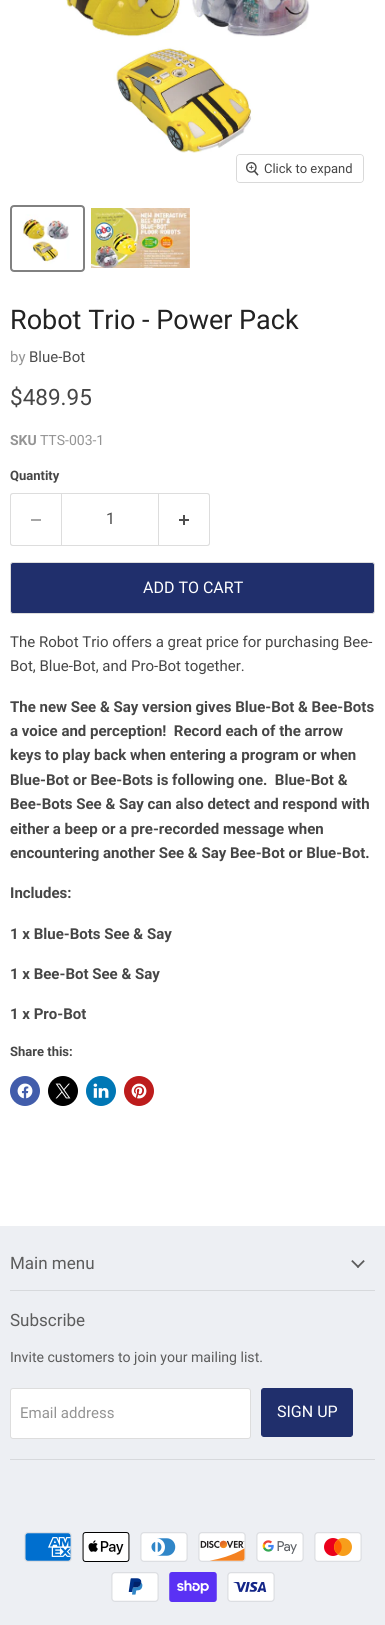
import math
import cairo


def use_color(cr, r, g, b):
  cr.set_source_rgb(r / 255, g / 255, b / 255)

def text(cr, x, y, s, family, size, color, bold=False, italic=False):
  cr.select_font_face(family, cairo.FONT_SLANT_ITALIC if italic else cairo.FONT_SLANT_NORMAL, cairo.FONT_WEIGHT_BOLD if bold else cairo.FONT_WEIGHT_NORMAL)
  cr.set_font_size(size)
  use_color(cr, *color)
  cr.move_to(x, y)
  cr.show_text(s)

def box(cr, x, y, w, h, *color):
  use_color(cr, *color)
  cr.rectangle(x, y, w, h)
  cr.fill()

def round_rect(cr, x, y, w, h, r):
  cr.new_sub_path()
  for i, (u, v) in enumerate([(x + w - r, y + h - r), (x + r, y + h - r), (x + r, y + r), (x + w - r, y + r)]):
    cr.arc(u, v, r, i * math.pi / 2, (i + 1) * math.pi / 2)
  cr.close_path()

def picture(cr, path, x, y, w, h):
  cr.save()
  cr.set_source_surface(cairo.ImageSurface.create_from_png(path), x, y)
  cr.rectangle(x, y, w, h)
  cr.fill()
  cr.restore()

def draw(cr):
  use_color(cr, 255, 255, 255)
  cr.paint()
  picture(cr, "img_01.png", 66, 0, 244, 153)
  round_rect(cr, 236.5, 154.5, 127, 28, 3.5)
  use_color(cr, 217, 217, 217)
  cr.set_line_width(1)
  cr.stroke()
  cr.set_source_rgba(1, 1, 1, 0.9)
  round_rect(cr, 237, 155, 126, 27, 3)
  cr.fill()
  picture(cr, "img_02.png", 246, 162, 13, 14)
  round_rect(cr, 11, 206, 73, 65, 3)
  use_color(cr, 129, 129, 129)
  cr.set_line_width(2)
  cr.stroke()
  picture(cr, "img_03.png", 20, 214, 50, 50)
  picture(cr, "img_04.png", 91, 208, 99, 60)
  use_color(cr, 221, 221, 221)
  cr.set_fill_rule(cairo.FILL_RULE_EVEN_ODD)
  cr.new_path()
  cr.move_to(13, 493)
  cr.line_to(61, 493)
  cr.line_to(61, 546)
  cr.line_to(13, 546)
  cr.curve_to(11, 546, 10, 545, 10, 543)
  cr.line_to(10, 496)
  cr.curve_to(10, 494, 11, 493, 13, 493)
  cr.close_path()
  cr.move_to(13, 494)
  cr.line_to(61, 494)
  cr.line_to(61, 545)
  cr.line_to(13, 545)
  cr.curve_to(12, 545, 11, 544, 11, 543)
  cr.line_to(11, 496)
  cr.curve_to(11, 495, 12, 494, 13, 494)
  cr.close_path()
  cr.fill()
  box(cr, 31, 519, 10, 2, 166, 166, 166)
  cr.rectangle(61.5, 493.5, 97, 52)
  use_color(cr, 221, 221, 221)
  cr.set_line_width(1)
  cr.stroke()
  cr.new_path()
  cr.move_to(159, 493)
  cr.line_to(207, 493)
  cr.curve_to(209, 493, 210, 494, 210, 496)
  cr.line_to(210, 543)
  cr.curve_to(210, 545, 209, 546, 207, 546)
  cr.line_to(159, 546)
  cr.close_path()
  cr.move_to(159, 494)
  cr.line_to(207, 494)
  cr.curve_to(208, 494, 209, 495, 209, 496)
  cr.line_to(209, 543)
  cr.curve_to(209, 544, 208, 545, 207, 545)
  cr.line_to(159, 545)
  cr.close_path()
  cr.fill()
  picture(cr, "img_05.png", 179, 515, 10, 10)
  use_color(cr, 32, 47, 108)
  round_rect(cr, 10.5, 562.5, 364, 51, 2.5)
  cr.fill_preserve()
  use_color(cr, 221, 221, 221)
  cr.stroke()
  use_color(cr, 66, 93, 171)
  cr.arc(25, 1091, 15, 0, 2 * math.pi)
  cr.fill()
  picture(cr, "img_06.png", 17, 1083, 16, 16)
  use_color(cr, 0, 0, 0)
  cr.arc(63, 1091, 15, 0, 2 * math.pi)
  cr.fill()
  picture(cr, "img_07.png", 55, 1083, 16, 16)
  use_color(cr, 0, 119, 181)
  cr.arc(101, 1091, 15, 0, 2 * math.pi)
  cr.fill()
  picture(cr, "img_08.png", 93, 1083, 16, 15)
  use_color(cr, 189, 28, 28)
  cr.arc(139, 1091, 15, 0, 2 * math.pi)
  cr.fill()
  picture(cr, "img_09.png", 131, 1083, 16, 16)
  box(cr, 0, 1226, 385, 399, 237, 239, 243)
  box(cr, 10, 1290, 365, 1, 215, 217, 220)
  picture(cr, "img_10.png", 351, 1260, 14, 8)
  box(cr, 10, 1459, 365, 1, 215, 217, 220)
  use_color(cr, 255, 255, 255)
  round_rect(cr, 10.5, 1388.5, 240, 50, 2.5)
  cr.fill_preserve()
  use_color(cr, 221, 221, 221)
  cr.stroke()
  use_color(cr, 32, 47, 108)
  round_rect(cr, 261.5, 1388.5, 91, 48, 2.5)
  cr.fill_preserve()
  cr.stroke()
  picture(cr, "img_11.png", 24, 1532, 48, 30)
  picture(cr, "img_12.png", 82, 1532, 48, 30)
  picture(cr, "img_13.png", 140, 1532, 48, 30)
  picture(cr, "img_14.png", 198, 1532, 48, 30)
  picture(cr, "img_15.png", 256, 1532, 48, 30)
  picture(cr, "img_16.png", 314, 1532, 48, 30)
  picture(cr, "img_17.png", 111, 1572, 48, 30)
  picture(cr, "img_18.png", 169, 1572, 48, 30)
  picture(cr, "img_19.png", 227, 1572, 48, 30)
  text(cr, 264, 173, "Click to expand", "Roboto", 13, (70, 70, 70))
  text(cr, 10, 329, "Robot Trio - Power Pack", "Roboto", 27, (34, 34, 34))
  text(cr, 10, 362, "by", "Roboto", 15, (148, 148, 148))
  text(cr, 29, 362, "Blue-Bot", "Roboto", 15, (77, 77, 77))
  text(cr, 10, 405, "$489.95", "Roboto", 22.5, (70, 70, 70))
  text(cr, 10, 445, "SKU", "Roboto", 14, (148, 148, 148), bold=True)
  text(cr, 40, 445, "TTS-003-1", "Roboto", 14, (148, 148, 148))
  text(cr, 10, 480, "Quantity", "Roboto", 13, (70, 70, 70), bold=True)
  text(cr, 106, 524, "1", "Roboto", 16, (77, 77, 77))
  text(cr, 143, 593, "ADD TO CART", "Roboto", 16, (255, 255, 255))
  text(cr, 10, 647, "The Robot Trio offers a great price for purchasing Bee-", "Roboto", 15, (70, 70, 70))
  text(cr, 10, 671, "Bot, Blue-Bot, and Pro-Bot together.", "Roboto", 15, (70, 70, 70))
  text(cr, 10, 712, "The new See & Say version gives Blue-Bot & Bee-Bots", "Roboto", 15, (70, 70, 70), bold=True)
  text(cr, 10, 736, "a voice and perception!  Record each of the arrow", "Roboto", 15, (70, 70, 70), bold=True)
  text(cr, 10, 760, "keys to play back when entering a program or when", "Roboto", 15, (70, 70, 70), bold=True)
  text(cr, 10, 785, "Blue-Bot or Bee-Bots is following one.  Blue-Bot &", "Roboto", 15, (70, 70, 70), bold=True)
  text(cr, 10, 809, "Bee-Bots See & Say can also detect and respond with", "Roboto", 15, (70, 70, 70), bold=True)
  text(cr, 10, 834, "either a beep or a pre-recorded message when", "Roboto", 15, (70, 70, 70), bold=True)
  text(cr, 10, 858, "encountering another See & Say Bee-Bot or Blue-Bot.", "Roboto", 15, (70, 70, 70), bold=True)
  text(cr, 10, 898, "Includes:", "Roboto", 15, (70, 70, 70), bold=True)
  text(cr, 10, 939, "1 x Blue-Bots See & Say", "Roboto", 15, (70, 70, 70), bold=True)
  text(cr, 10, 979, "1 x Bee-Bot See & Say", "Roboto", 15, (70, 70, 70), bold=True)
  text(cr, 10, 1019, "1 x Pro-Bot", "Roboto", 15, (70, 70, 70), bold=True)
  text(cr, 10, 1056, "Share this:", "Roboto", 13, (70, 70, 70), bold=True)
  text(cr, 10, 1269, "Main menu", "Roboto", 17, (92, 92, 92))
  text(cr, 10, 1326, "Subscribe", "Roboto", 17, (92, 92, 92))
  text(cr, 10, 1362, "Invite customers to join your mailing list.", "Roboto", 14.1, (92, 92, 92))
  text(cr, 20, 1418, "Email address", "Roboto", 15, (148, 148, 148))
  text(cr, 277, 1417, "SIGN UP", "Roboto", 16, (255, 255, 255))


surface = cairo.ImageSurface(cairo.FORMAT_RGB24, 385, 1625)
cr = cairo.Context(surface)
options = cairo.FontOptions()
options.set_hint_metrics(cairo.HINT_METRICS_OFF)
options.set_hint_style(cairo.HINT_STYLE_NONE)
cr.set_font_options(options)
cr.set_miter_limit(4)
draw(cr)
surface.write_to_png("out.png")
